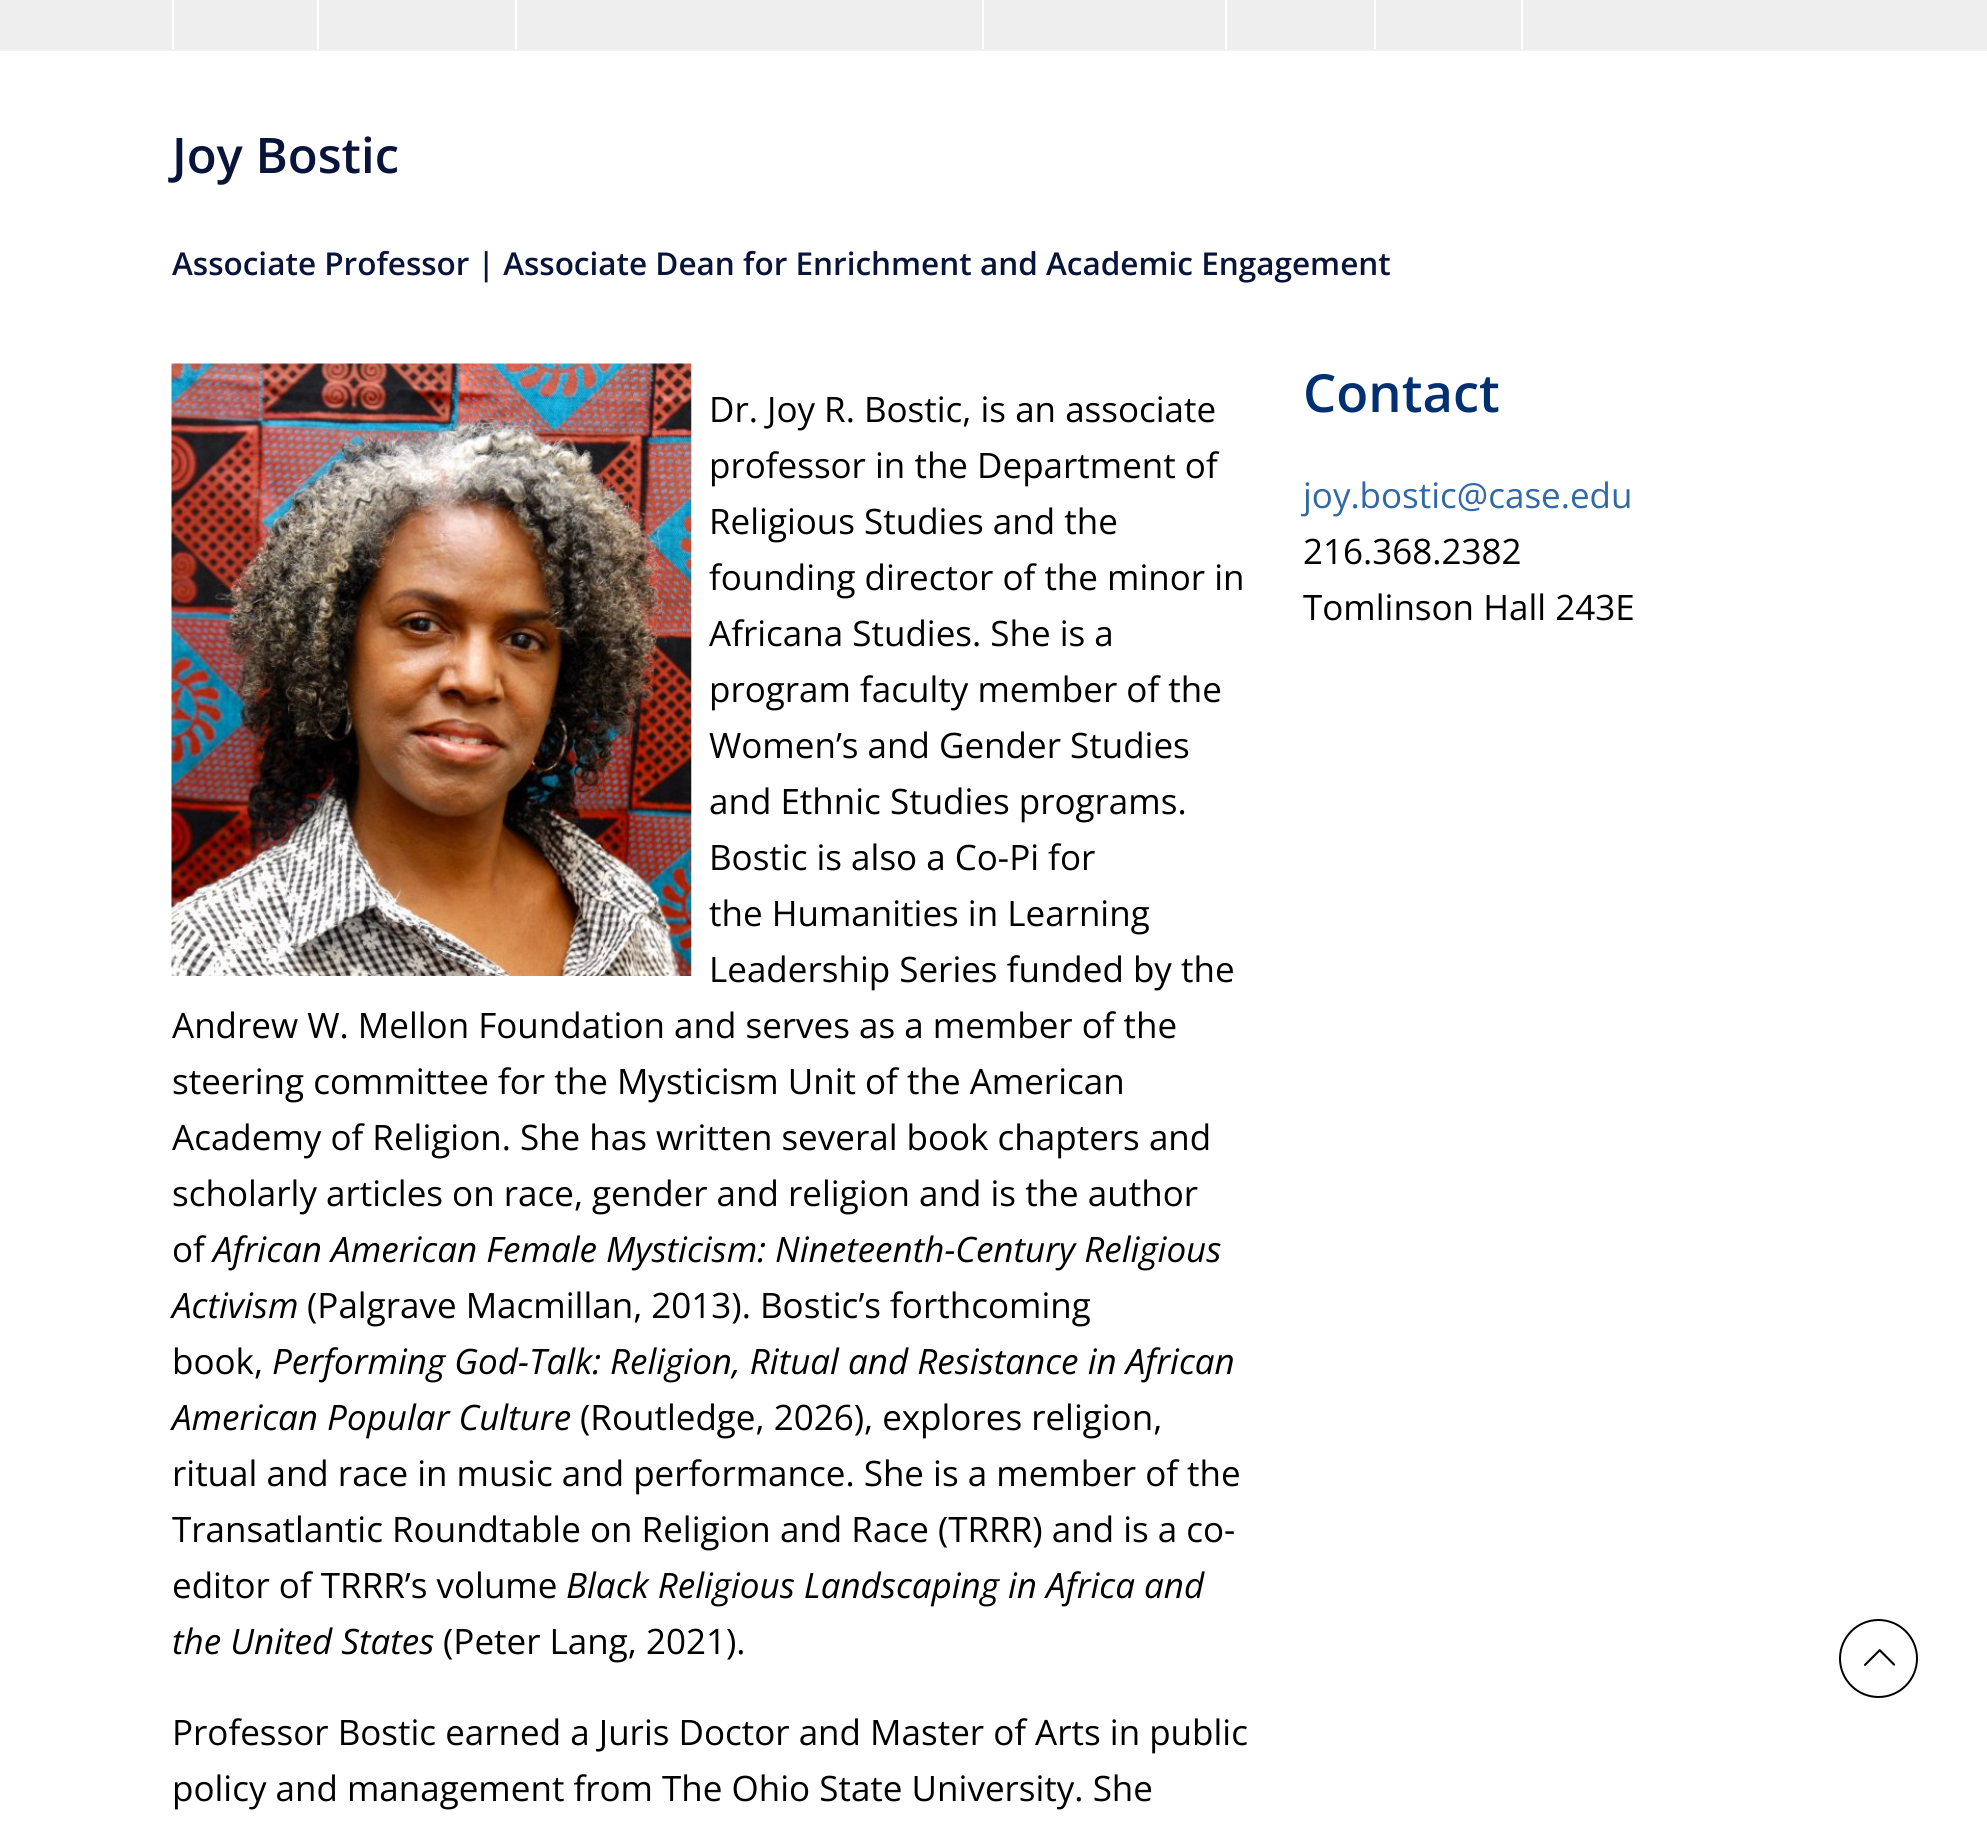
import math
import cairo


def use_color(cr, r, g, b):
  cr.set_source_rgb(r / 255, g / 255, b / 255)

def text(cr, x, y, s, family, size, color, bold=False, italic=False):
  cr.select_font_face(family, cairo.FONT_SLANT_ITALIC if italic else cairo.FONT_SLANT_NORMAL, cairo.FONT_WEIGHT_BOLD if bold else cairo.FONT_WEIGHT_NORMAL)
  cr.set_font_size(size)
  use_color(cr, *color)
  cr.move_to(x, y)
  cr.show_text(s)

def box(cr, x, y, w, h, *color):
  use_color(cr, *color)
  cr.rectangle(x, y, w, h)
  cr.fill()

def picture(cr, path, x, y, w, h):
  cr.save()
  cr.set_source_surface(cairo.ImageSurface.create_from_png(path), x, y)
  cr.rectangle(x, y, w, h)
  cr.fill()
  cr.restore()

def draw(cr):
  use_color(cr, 255, 255, 255)
  cr.paint()
  box(cr, 0, 0, 1987, 49, 238, 238, 238)
  box(cr, 0, 49, 1987, 2, 241, 241, 241)
  box(cr, 172, 0, 2, 49, 255, 255, 255)
  box(cr, 317, 0, 2, 49, 255, 255, 255)
  box(cr, 515, 0, 2, 49, 255, 255, 255)
  box(cr, 982, 0, 2, 49, 255, 255, 255)
  box(cr, 1225, 0, 2, 49, 255, 255, 255)
  box(cr, 1374, 0, 2, 49, 255, 255, 255)
  box(cr, 1521, 0, 2, 49, 255, 255, 255)
  picture(cr, "img_01.png", 171, 363, 521, 613)
  cr.arc(1878.5, 1658.5, 38.5, 0, 2 * math.pi)
  use_color(cr, 0, 0, 0)
  cr.stroke()
  picture(cr, "img_02.png", 1864, 1649, 32, 17)
  text(cr, 172, 173, "Joy Bostic", "Open Sans SemiBold", 49, (9, 20, 58))
  text(cr, 172, 275, "Associate Professor | Associate Dean for Enrichment and Academic Engagement", "Open Sans SemiBold", 31.5, (9, 20, 58))
  text(cr, 709, 422, "Dr. Joy R. Bostic, is an associate", "Open Sans", 35, (0, 0, 0))
  text(cr, 709, 478, "professor in the Department of", "Open Sans", 35, (0, 0, 0))
  text(cr, 709, 534, "Religious Studies and the", "Open Sans", 35, (0, 0, 0))
  text(cr, 709, 590, "founding director of the minor in", "Open Sans", 35, (0, 0, 0))
  text(cr, 709, 646, "Africana Studies. She is a", "Open Sans", 35, (0, 0, 0))
  text(cr, 709, 702, "program faculty member of the", "Open Sans", 35, (0, 0, 0))
  text(cr, 709, 758, "Women’s and Gender Studies", "Open Sans", 35, (0, 0, 0))
  text(cr, 709, 814, "and Ethnic Studies programs.", "Open Sans", 35, (0, 0, 0))
  text(cr, 709, 870, "Bostic is also a Co-Pi for", "Open Sans", 35, (0, 0, 0))
  text(cr, 709, 926, "the Humanities in Learning", "Open Sans", 35, (0, 0, 0))
  text(cr, 709, 982, "Leadership Series funded by the", "Open Sans", 35, (0, 0, 0))
  text(cr, 172, 1038, "Andrew W. Mellon Foundation and serves as a member of the", "Open Sans", 35, (0, 0, 0))
  text(cr, 172, 1094, "steering committee for the Mysticism Unit of the American", "Open Sans", 35, (0, 0, 0))
  text(cr, 172, 1150, "Academy of Religion. She has written several book chapters and", "Open Sans", 35, (0, 0, 0))
  text(cr, 172, 1206, "scholarly articles on race, gender and religion and is the author", "Open Sans", 35, (0, 0, 0))
  text(cr, 172, 1262, "of", "Open Sans", 35, (0, 0, 0))
  text(cr, 213, 1262, "African American Female Mysticism: Nineteenth-Century Religious", "Open Sans", 35, (0, 0, 0), italic=True)
  text(cr, 172, 1318, "Activism", "Open Sans", 35, (0, 0, 0), italic=True)
  text(cr, 307, 1318, "(Palgrave Macmillan, 2013). Bostic’s forthcoming", "Open Sans", 35, (0, 0, 0))
  text(cr, 172, 1374, "book,", "Open Sans", 35, (0, 0, 0))
  text(cr, 272, 1374, "Performing God-Talk: Religion, Ritual and Resistance in African", "Open Sans", 35, (0, 0, 0), italic=True)
  text(cr, 172, 1430, "American Popular Culture", "Open Sans", 35, (0, 0, 0), italic=True)
  text(cr, 580, 1430, "(Routledge, 2026), explores religion,", "Open Sans", 35, (0, 0, 0))
  text(cr, 172, 1486, "ritual and race in music and performance. She is a member of the", "Open Sans", 35, (0, 0, 0))
  text(cr, 172, 1542, "Transatlantic Roundtable on Religion and Race (TRRR) and is a co-", "Open Sans", 35, (0, 0, 0))
  text(cr, 172, 1598, "editor of TRRR’s volume", "Open Sans", 35, (0, 0, 0))
  text(cr, 566, 1598, "Black Religious Landscaping in Africa and", "Open Sans", 35, (0, 0, 0), italic=True)
  text(cr, 172, 1654, "the United States", "Open Sans", 35, (0, 0, 0), italic=True)
  text(cr, 443, 1654, "(Peter Lang, 2021).", "Open Sans", 35, (0, 0, 0))
  text(cr, 172, 1745, "Professor Bostic earned a Juris Doctor and Master of Arts in public", "Open Sans", 35, (0, 0, 0))
  text(cr, 172, 1801, "policy and management from The Ohio State University. She", "Open Sans", 35, (0, 0, 0))
  text(cr, 1303, 412, "Contact", "Open Sans SemiBold", 52.5, (0, 48, 113))
  text(cr, 1303, 508, "joy.bostic@case.edu", "Open Sans", 35, (49, 104, 166))
  text(cr, 1303, 564, "216.368.2382", "Open Sans", 35, (0, 0, 0))
  text(cr, 1303, 620, "Tomlinson Hall 243E", "Open Sans", 35, (0, 0, 0))


surface = cairo.ImageSurface(cairo.FORMAT_RGB24, 1987, 1828)
cr = cairo.Context(surface)
options = cairo.FontOptions()
options.set_hint_metrics(cairo.HINT_METRICS_OFF)
options.set_hint_style(cairo.HINT_STYLE_NONE)
cr.set_font_options(options)
cr.set_miter_limit(4)
draw(cr)
surface.write_to_png("out.png")
